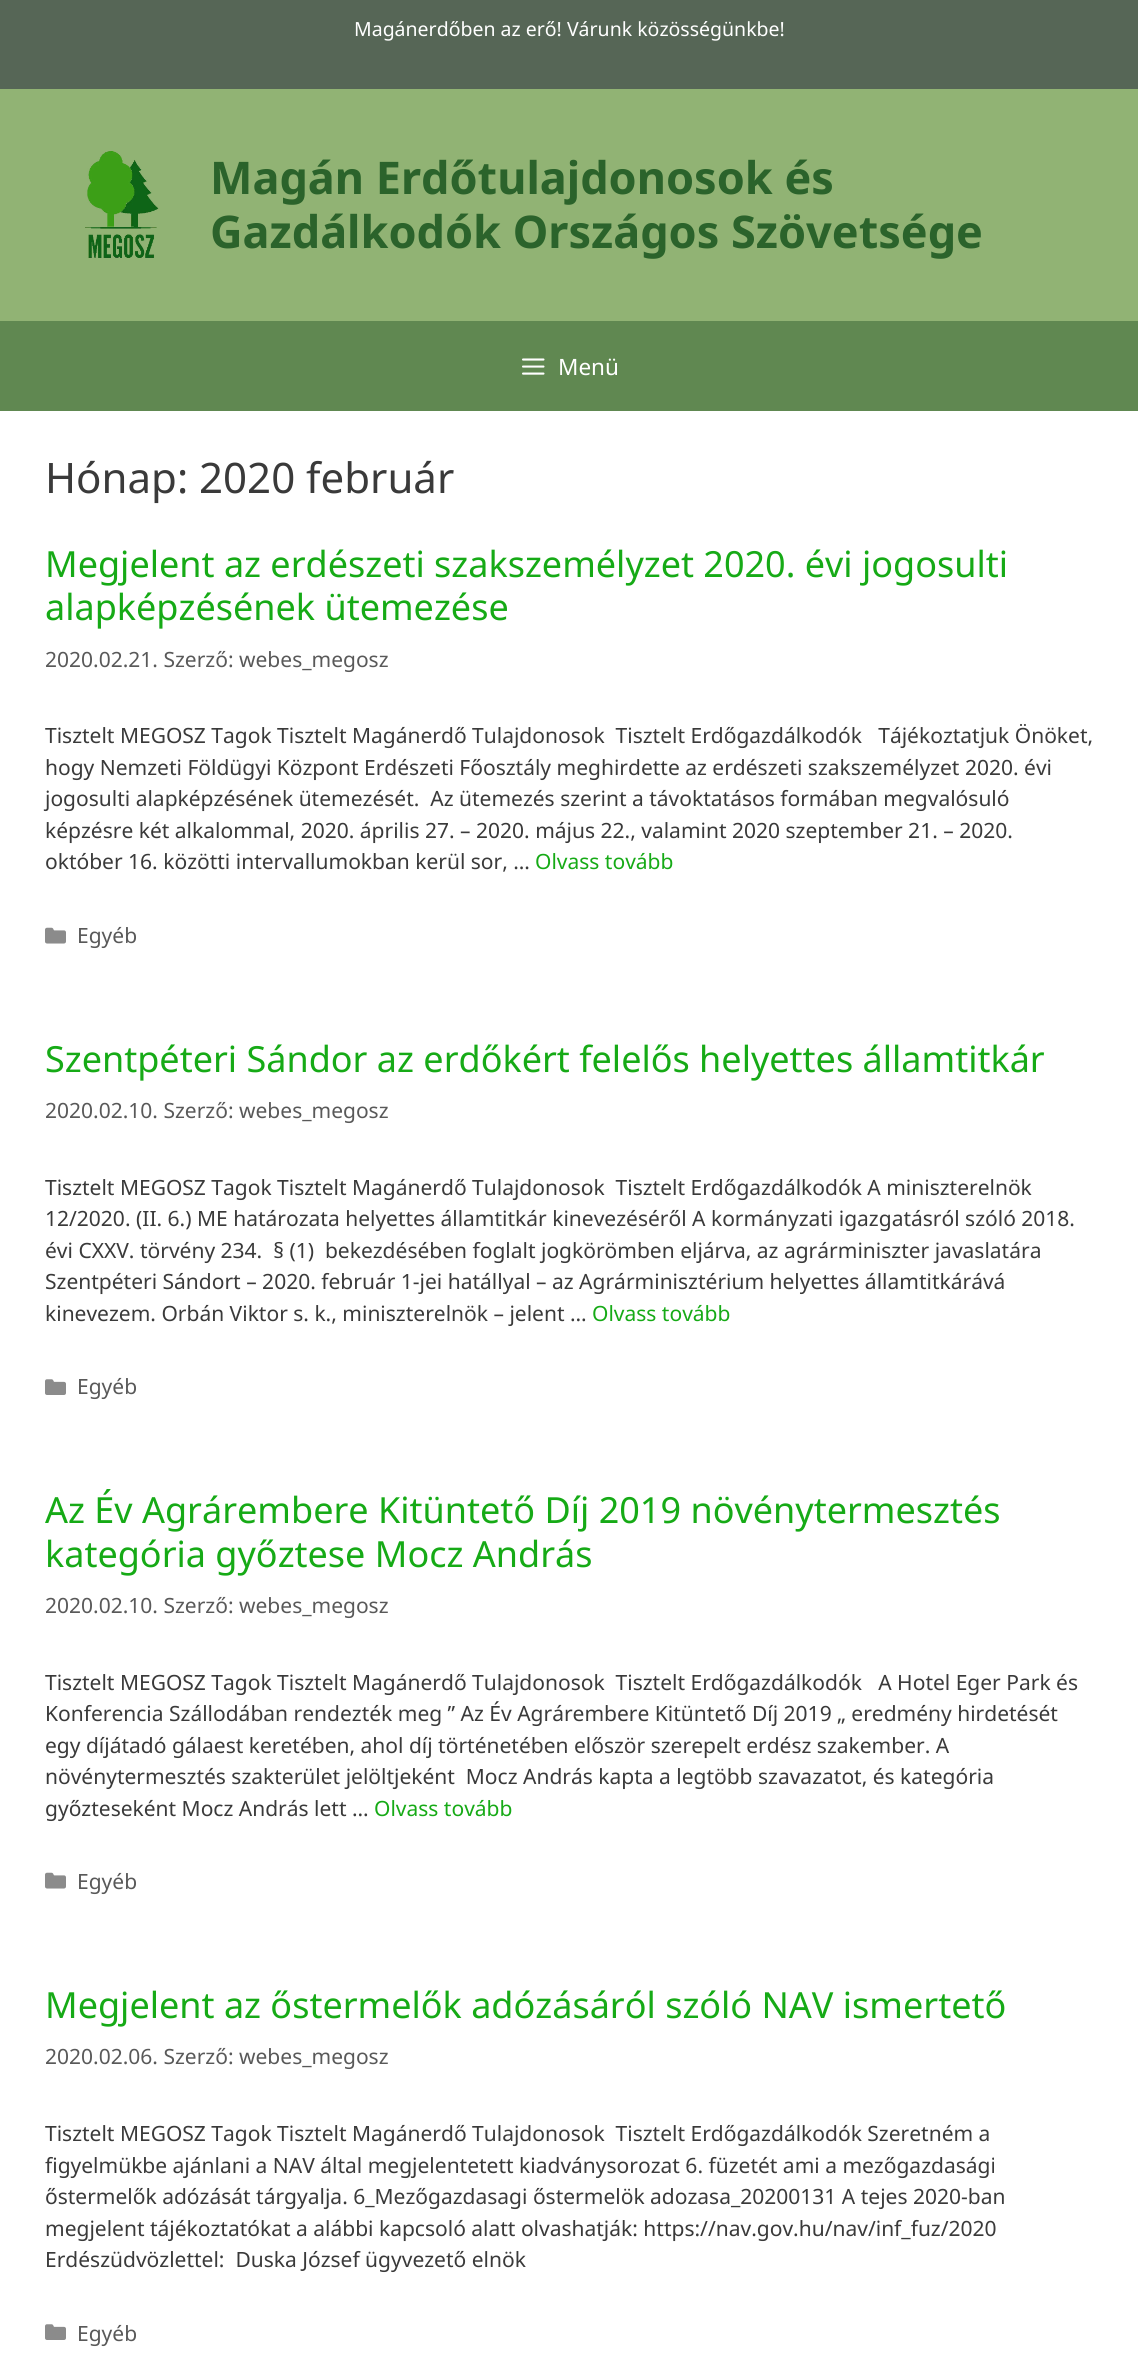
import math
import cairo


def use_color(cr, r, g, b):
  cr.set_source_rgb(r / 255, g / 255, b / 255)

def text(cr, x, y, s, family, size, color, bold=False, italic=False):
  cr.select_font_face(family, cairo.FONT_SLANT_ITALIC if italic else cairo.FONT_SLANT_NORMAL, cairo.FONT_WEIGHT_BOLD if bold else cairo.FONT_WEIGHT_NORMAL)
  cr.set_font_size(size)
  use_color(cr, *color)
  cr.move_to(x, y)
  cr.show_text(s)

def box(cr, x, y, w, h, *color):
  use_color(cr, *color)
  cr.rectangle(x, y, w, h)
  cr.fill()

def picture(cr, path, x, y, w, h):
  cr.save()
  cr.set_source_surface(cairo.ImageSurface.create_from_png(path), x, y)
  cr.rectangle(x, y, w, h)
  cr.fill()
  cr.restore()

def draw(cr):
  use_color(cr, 86, 102, 86)
  cr.paint()
  box(cr, 0, 89, 1138, 232, 145, 179, 116)
  picture(cr, "img_01.png", 85, 151, 74, 107)
  box(cr, 0, 321, 1138, 90, 96, 136, 81)
  picture(cr, "img_02.png", 522, 358, 23, 17)
  box(cr, 0, 411, 1138, 1966, 255, 255, 255)
  picture(cr, "img_03.png", 45, 927, 21, 17)
  picture(cr, "img_04.png", 45, 1379, 21, 16)
  picture(cr, "img_03.png", 45, 1872, 21, 17)
  picture(cr, "img_04.png", 45, 2324, 21, 16)
  text(cr, 354, 36, "Magánerdőben az erő! Várunk közösségünkbe!", "Noto Sans", 19.5, (255, 255, 255))
  text(cr, 210, 194, "Magán Erdőtulajdonosok és", "Noto Sans", 45, (43, 99, 43), bold=True)
  text(cr, 210, 248, "Gazdálkodók Országos Szövetsége", "Noto Sans", 45, (43, 99, 43), bold=True)
  text(cr, 558, 375, "Menü", "Noto Sans", 22.5, (255, 255, 255))
  text(cr, 45, 493, "Hónap: 2020 február", "Noto Sans", 42, (58, 58, 58))
  text(cr, 45, 577, "Megjelent az erdészeti szakszemélyzet 2020. évi jogosulti", "Noto Sans", 36, (22, 170, 22))
  text(cr, 45, 620, "alapképzésének ütemezése", "Noto Sans", 36, (22, 170, 22))
  text(cr, 45, 667, "2020.02.21. Szerző: webes_megosz", "Noto Sans", 21, (89, 89, 89))
  text(cr, 45, 743, "Tisztelt MEGOSZ Tagok Tisztelt Magánerdő Tulajdonosok  Tisztelt Erdőgazdálkodók   Tájékoztatjuk Önöket,", "Noto Sans", 21, (58, 58, 58))
  text(cr, 45, 775, "hogy Nemzeti Földügyi Központ Erdészeti Főosztály meghirdette az erdészeti szakszemélyzet 2020. évi", "Noto Sans", 21, (58, 58, 58))
  text(cr, 45, 806, "jogosulti alapképzésének ütemezését.  Az ütemezés szerint a távoktatásos formában megvalósuló", "Noto Sans", 21, (58, 58, 58))
  text(cr, 45, 838, "képzésre két alkalommal, 2020. április 27. – 2020. május 22., valamint 2020 szeptember 21. – 2020.", "Noto Sans", 21, (58, 58, 58))
  text(cr, 45, 869, "október 16. közötti intervallumokban kerül sor, …", "Noto Sans", 21, (58, 58, 58))
  text(cr, 535, 869, "Olvass tovább", "Noto Sans", 21, (22, 170, 22))
  text(cr, 77, 943, "Egyéb", "Noto Sans", 21, (89, 89, 89))
  text(cr, 45, 1072, "Szentpéteri Sándor az erdőkért felelős helyettes államtitkár", "Noto Sans", 36, (22, 170, 22))
  text(cr, 45, 1118, "2020.02.10. Szerző: webes_megosz", "Noto Sans", 21, (89, 89, 89))
  text(cr, 45, 1195, "Tisztelt MEGOSZ Tagok Tisztelt Magánerdő Tulajdonosok  Tisztelt Erdőgazdálkodók A miniszterelnök", "Noto Sans", 21, (58, 58, 58))
  text(cr, 45, 1226, "12/2020. (II. 6.) ME határozata helyettes államtitkár kinevezéséről A kormányzati igazgatásról szóló 2018.", "Noto Sans", 21, (58, 58, 58))
  text(cr, 45, 1258, "évi CXXV. törvény 234.  § (1)  bekezdésében foglalt jogkörömben eljárva, az agrárminiszter javaslatára", "Noto Sans", 21, (58, 58, 58))
  text(cr, 45, 1289, "Szentpéteri Sándort – 2020. február 1-jei hatállyal – az Agrárminisztérium helyettes államtitkárává", "Noto Sans", 21, (58, 58, 58))
  text(cr, 45, 1321, "kinevezem. Orbán Viktor s. k., miniszterelnök – jelent …", "Noto Sans", 21, (58, 58, 58))
  text(cr, 592, 1321, "Olvass tovább", "Noto Sans", 21, (22, 170, 22))
  text(cr, 77, 1394, "Egyéb", "Noto Sans", 21, (89, 89, 89))
  text(cr, 45, 1523, "Az Év Agrárembere Kitüntető Díj 2019 növénytermesztés", "Noto Sans", 36, (22, 170, 22))
  text(cr, 45, 1567, "kategória győztese Mocz András", "Noto Sans", 36, (22, 170, 22))
  text(cr, 45, 1613, "2020.02.10. Szerző: webes_megosz", "Noto Sans", 21, (89, 89, 89))
  text(cr, 45, 1690, "Tisztelt MEGOSZ Tagok Tisztelt Magánerdő Tulajdonosok  Tisztelt Erdőgazdálkodók   A Hotel Eger Park és", "Noto Sans", 21, (58, 58, 58))
  text(cr, 45, 1721, "Konferencia Szállodában rendezték meg ” Az Év Agrárembere Kitüntető Díj 2019 „ eredmény hirdetését", "Noto Sans", 21, (58, 58, 58))
  text(cr, 45, 1753, "egy díjátadó gálaest keretében, ahol díj történetében először szerepelt erdész szakember. A", "Noto Sans", 21, (58, 58, 58))
  text(cr, 45, 1784, "növénytermesztés szakterület jelöltjeként  Mocz András kapta a legtöbb szavazatot, és kategória", "Noto Sans", 21, (58, 58, 58))
  text(cr, 45, 1816, "győzteseként Mocz András lett …", "Noto Sans", 21, (58, 58, 58))
  text(cr, 374, 1816, "Olvass tovább", "Noto Sans", 21, (22, 170, 22))
  text(cr, 77, 1889, "Egyéb", "Noto Sans", 21, (89, 89, 89))
  text(cr, 45, 2018, "Megjelent az őstermelők adózásáról szóló NAV ismertető", "Noto Sans", 36, (22, 170, 22))
  text(cr, 45, 2064, "2020.02.06. Szerző: webes_megosz", "Noto Sans", 21, (89, 89, 89))
  text(cr, 45, 2141, "Tisztelt MEGOSZ Tagok Tisztelt Magánerdő Tulajdonosok  Tisztelt Erdőgazdálkodók Szeretném a", "Noto Sans", 21, (58, 58, 58))
  text(cr, 45, 2173, "figyelmükbe ajánlani a NAV által megjelentetett kiadványsorozat 6. füzetét ami a mezőgazdasági", "Noto Sans", 21, (58, 58, 58))
  text(cr, 45, 2204, "őstermelők adózását tárgyalja. 6_Mezőgazdasagi őstermelök adozasa_20200131 A tejes 2020-ban", "Noto Sans", 21, (58, 58, 58))
  text(cr, 45, 2236, "megjelent tájékoztatókat a alábbi kapcsoló alatt olvashatják: https://nav.gov.hu/nav/inf_fuz/2020", "Noto Sans", 21, (58, 58, 58))
  text(cr, 45, 2267, "Erdészüdvözlettel:  Duska József ügyvezető elnök", "Noto Sans", 21, (58, 58, 58))
  text(cr, 77, 2341, "Egyéb", "Noto Sans", 21, (89, 89, 89))


surface = cairo.ImageSurface(cairo.FORMAT_RGB24, 1138, 2377)
cr = cairo.Context(surface)
options = cairo.FontOptions()
options.set_hint_metrics(cairo.HINT_METRICS_OFF)
options.set_hint_style(cairo.HINT_STYLE_NONE)
cr.set_font_options(options)
cr.set_miter_limit(4)
draw(cr)
surface.write_to_png("out.png")
